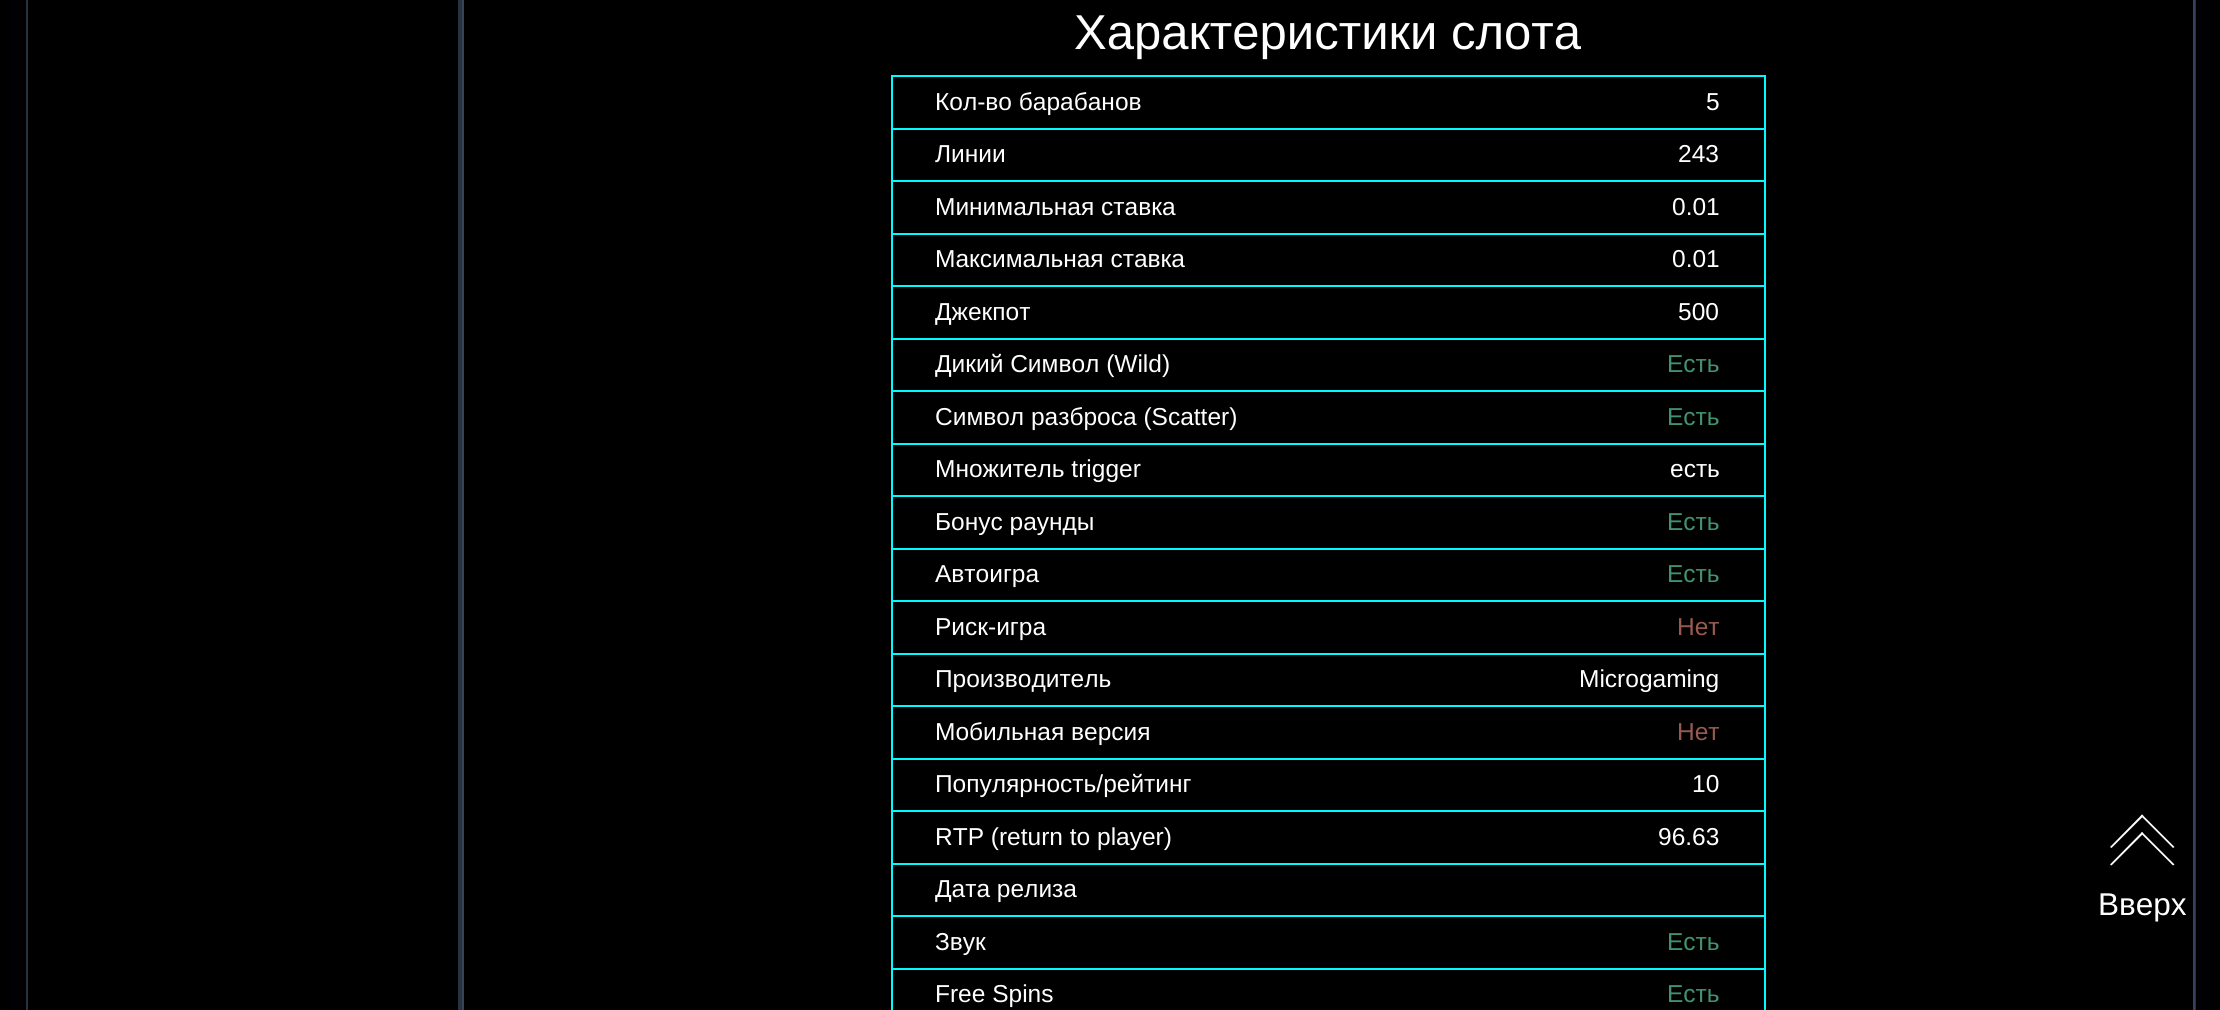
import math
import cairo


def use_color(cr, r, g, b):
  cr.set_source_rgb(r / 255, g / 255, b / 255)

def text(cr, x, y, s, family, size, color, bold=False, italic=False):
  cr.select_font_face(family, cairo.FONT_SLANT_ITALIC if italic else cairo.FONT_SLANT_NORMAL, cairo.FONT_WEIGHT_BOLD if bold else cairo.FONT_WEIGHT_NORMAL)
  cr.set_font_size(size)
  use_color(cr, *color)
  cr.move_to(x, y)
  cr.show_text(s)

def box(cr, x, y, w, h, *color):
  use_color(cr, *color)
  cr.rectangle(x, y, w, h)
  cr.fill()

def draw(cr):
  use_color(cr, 255, 255, 255)
  cr.paint()
  gradient = cairo.LinearGradient(0, -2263, 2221, -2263)
  gradient.add_color_stop_rgba(0, 0, 0, 0, 1)
  gradient.add_color_stop_rgba(0.39, 0.243, 0.055, 0.525, 1)
  gradient.add_color_stop_rgba(0.61, 0.243, 0.055, 0.525, 1)
  gradient.add_color_stop_rgba(1, 0, 0, 0, 1)
  cr.set_source(gradient)
  cr.rectangle(0, 0, 2220, 1010)
  cr.fill()
  box(cr, 28, 0, 2165, 1010, 0, 0, 0)
  cr.rectangle(27, -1, 432, 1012)
  use_color(cr, 40, 50, 58)
  cr.stroke()
  cr.rectangle(461, -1, 1734, 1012)
  cr.stroke()
  cr.rectangle(463, -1, 1731, 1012)
  use_color(cr, 52, 67, 91)
  cr.stroke()
  box(cr, 891, 75, 875, 2, 0, 250, 255)
  box(cr, 1764, 75, 2, 53, 0, 250, 255)
  box(cr, 891, 75, 2, 53, 0, 250, 255)
  box(cr, 891, 128, 875, 2, 0, 250, 255)
  box(cr, 1764, 128, 2, 52, 0, 250, 255)
  box(cr, 891, 128, 2, 52, 0, 250, 255)
  box(cr, 891, 180, 875, 2, 0, 250, 255)
  box(cr, 1764, 180, 2, 53, 0, 250, 255)
  box(cr, 891, 180, 2, 53, 0, 250, 255)
  box(cr, 891, 233, 875, 2, 0, 250, 255)
  box(cr, 1764, 233, 2, 52, 0, 250, 255)
  box(cr, 891, 233, 2, 52, 0, 250, 255)
  box(cr, 891, 285, 875, 2, 0, 250, 255)
  box(cr, 1764, 285, 2, 53, 0, 250, 255)
  box(cr, 891, 285, 2, 53, 0, 250, 255)
  box(cr, 891, 338, 875, 2, 0, 250, 255)
  box(cr, 1764, 338, 2, 52, 0, 250, 255)
  box(cr, 891, 338, 2, 52, 0, 250, 255)
  box(cr, 891, 390, 875, 2, 0, 250, 255)
  box(cr, 1764, 390, 2, 53, 0, 250, 255)
  box(cr, 891, 390, 2, 53, 0, 250, 255)
  box(cr, 891, 443, 875, 2, 0, 250, 255)
  box(cr, 1764, 443, 2, 52, 0, 250, 255)
  box(cr, 891, 443, 2, 52, 0, 250, 255)
  box(cr, 891, 495, 875, 2, 0, 250, 255)
  box(cr, 1764, 495, 2, 53, 0, 250, 255)
  box(cr, 891, 495, 2, 53, 0, 250, 255)
  box(cr, 891, 548, 875, 2, 0, 250, 255)
  box(cr, 1764, 548, 2, 52, 0, 250, 255)
  box(cr, 891, 548, 2, 52, 0, 250, 255)
  box(cr, 891, 600, 875, 2, 0, 250, 255)
  box(cr, 1764, 600, 2, 53, 0, 250, 255)
  box(cr, 891, 600, 2, 53, 0, 250, 255)
  box(cr, 891, 653, 875, 2, 0, 250, 255)
  box(cr, 1764, 653, 2, 52, 0, 250, 255)
  box(cr, 891, 653, 2, 52, 0, 250, 255)
  box(cr, 891, 705, 875, 2, 0, 250, 255)
  box(cr, 1764, 705, 2, 53, 0, 250, 255)
  box(cr, 891, 705, 2, 53, 0, 250, 255)
  box(cr, 891, 758, 875, 2, 0, 250, 255)
  box(cr, 1764, 758, 2, 52, 0, 250, 255)
  box(cr, 891, 758, 2, 52, 0, 250, 255)
  box(cr, 891, 810, 875, 2, 0, 250, 255)
  box(cr, 1764, 810, 2, 53, 0, 250, 255)
  box(cr, 891, 810, 2, 53, 0, 250, 255)
  box(cr, 891, 863, 875, 2, 0, 250, 255)
  box(cr, 1764, 863, 2, 52, 0, 250, 255)
  box(cr, 891, 863, 2, 52, 0, 250, 255)
  box(cr, 891, 915, 875, 2, 0, 250, 255)
  box(cr, 1764, 915, 2, 53, 0, 250, 255)
  box(cr, 891, 915, 2, 53, 0, 250, 255)
  cr.rectangle(892, 969, 873, 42)
  cr.stroke()
  use_color(cr, 255, 255, 255)
  cr.new_path()
  cr.move_to(2143.5, 816)
  cr.line_to(2111.5, 848)
  cr.line_to(2110, 847)
  cr.line_to(2142, 814.5)
  cr.close_path()
  cr.fill()
  cr.new_path()
  cr.move_to(2174.5, 847)
  cr.line_to(2173, 848)
  cr.line_to(2141, 816)
  cr.line_to(2142, 814.5)
  cr.close_path()
  cr.fill()
  cr.new_path()
  cr.move_to(2143.5, 833.5)
  cr.line_to(2111.5, 865.5)
  cr.line_to(2110, 864.5)
  cr.line_to(2142, 832)
  cr.close_path()
  cr.fill()
  cr.new_path()
  cr.move_to(2174.5, 864.5)
  cr.line_to(2173, 865.5)
  cr.line_to(2141, 833.5)
  cr.line_to(2142, 832)
  cr.close_path()
  cr.fill()
  text(cr, 1074, 49, "Характеристики слота", "Liberation Sans", 49, (255, 255, 255))
  text(cr, 935, 110, "Кол-во барабанов", "Liberation Sans", 24.5, (255, 255, 255))
  text(cr, 1706, 110, "5", "Liberation Sans", 24.5, (255, 255, 255))
  text(cr, 935, 162, "Линии", "Liberation Sans", 24.5, (255, 255, 255))
  text(cr, 1678, 162, "243", "Liberation Sans", 24.5, (255, 255, 255))
  text(cr, 935, 215, "Минимальная ставка", "Liberation Sans", 24.5, (255, 255, 255))
  text(cr, 1672, 215, "0.01", "Liberation Sans", 24.5, (255, 255, 255))
  text(cr, 935, 267, "Максимальная ставка", "Liberation Sans", 24.5, (255, 255, 255))
  text(cr, 1672, 267, "0.01", "Liberation Sans", 24.5, (255, 255, 255))
  text(cr, 935, 320, "Джекпот", "Liberation Sans", 24.5, (255, 255, 255))
  text(cr, 1678, 320, "500", "Liberation Sans", 24.5, (255, 255, 255))
  text(cr, 935, 372, "Дикий Символ (Wild)", "Liberation Sans", 24.5, (255, 255, 255))
  text(cr, 1667, 372, "Есть", "Liberation Sans", 24.5, (66, 146, 113))
  text(cr, 935, 425, "Символ разброса (Scatter)", "Liberation Sans", 24.5, (255, 255, 255))
  text(cr, 1667, 425, "Есть", "Liberation Sans", 24.5, (66, 146, 113))
  text(cr, 935, 477, "Множитель trigger", "Liberation Sans", 24.5, (255, 255, 255))
  text(cr, 1670, 477, "есть", "Liberation Sans", 24.5, (255, 255, 255))
  text(cr, 935, 530, "Бонус раунды", "Liberation Sans", 24.5, (255, 255, 255))
  text(cr, 1667, 530, "Есть", "Liberation Sans", 24.5, (66, 146, 113))
  text(cr, 935, 582, "Автоигра", "Liberation Sans", 24.5, (255, 255, 255))
  text(cr, 1667, 582, "Есть", "Liberation Sans", 24.5, (66, 146, 113))
  text(cr, 935, 635, "Риск-игра", "Liberation Sans", 24.5, (255, 255, 255))
  text(cr, 1677, 635, "Нет", "Liberation Sans", 24.5, (152, 90, 80))
  text(cr, 935, 687, "Производитель", "Liberation Sans", 24.5, (255, 255, 255))
  text(cr, 1579, 687, "Microgaming", "Liberation Sans", 24.5, (255, 255, 255))
  text(cr, 935, 740, "Мобильная версия", "Liberation Sans", 24.5, (255, 255, 255))
  text(cr, 1677, 740, "Нет", "Liberation Sans", 24.5, (152, 90, 80))
  text(cr, 935, 792, "Популярность/рейтинг", "Liberation Sans", 24.5, (255, 255, 255))
  text(cr, 1692, 792, "10", "Liberation Sans", 24.5, (255, 255, 255))
  text(cr, 935, 845, "RTP (return to player)", "Liberation Sans", 24.5, (255, 255, 255))
  text(cr, 1658, 845, "96.63", "Liberation Sans", 24.5, (255, 255, 255))
  text(cr, 935, 897, "Дата релиза", "Liberation Sans", 24.5, (255, 255, 255))
  text(cr, 935, 950, "Звук", "Liberation Sans", 24.5, (255, 255, 255))
  text(cr, 1667, 950, "Есть", "Liberation Sans", 24.5, (66, 146, 113))
  text(cr, 935, 1002, "Free Spins", "Liberation Sans", 24.5, (255, 255, 255))
  text(cr, 1667, 1002, "Есть", "Liberation Sans", 24.5, (66, 146, 113))
  text(cr, 2098, 915, "Вверх", "Liberation Sans", 31.5, (255, 255, 255))


surface = cairo.ImageSurface(cairo.FORMAT_RGB24, 2220, 1010)
cr = cairo.Context(surface)
options = cairo.FontOptions()
options.set_hint_metrics(cairo.HINT_METRICS_OFF)
options.set_hint_style(cairo.HINT_STYLE_NONE)
cr.set_font_options(options)
cr.set_miter_limit(4)
draw(cr)
surface.write_to_png("out.png")
